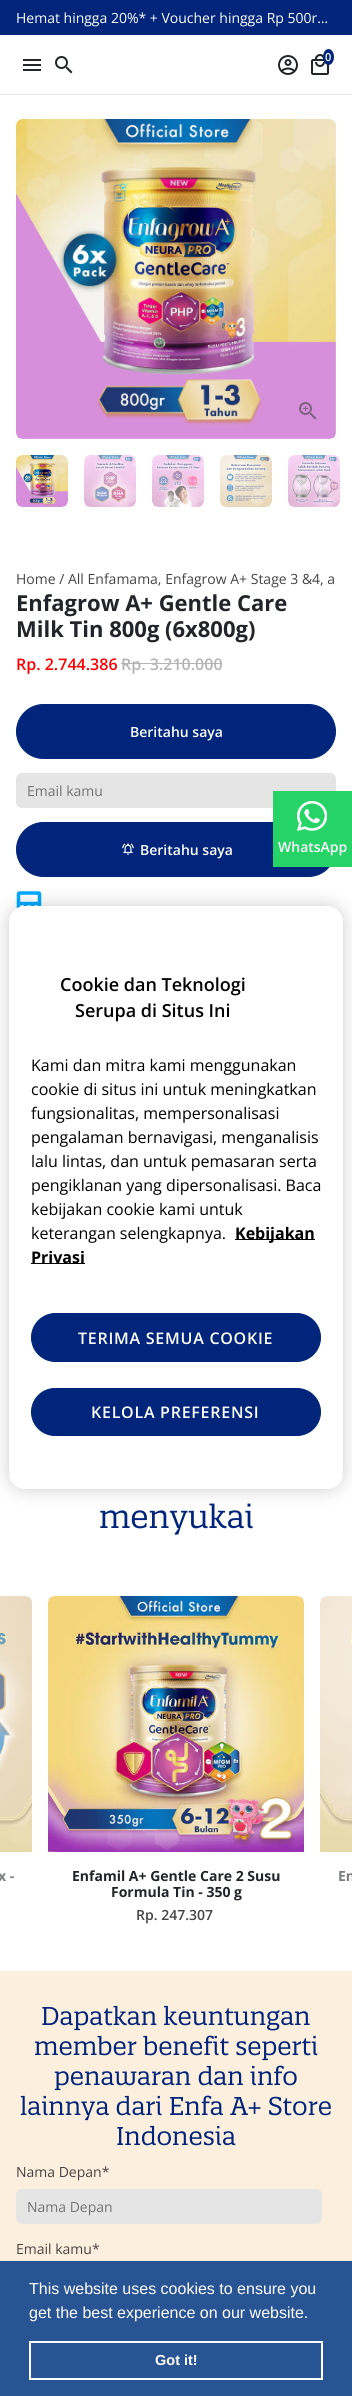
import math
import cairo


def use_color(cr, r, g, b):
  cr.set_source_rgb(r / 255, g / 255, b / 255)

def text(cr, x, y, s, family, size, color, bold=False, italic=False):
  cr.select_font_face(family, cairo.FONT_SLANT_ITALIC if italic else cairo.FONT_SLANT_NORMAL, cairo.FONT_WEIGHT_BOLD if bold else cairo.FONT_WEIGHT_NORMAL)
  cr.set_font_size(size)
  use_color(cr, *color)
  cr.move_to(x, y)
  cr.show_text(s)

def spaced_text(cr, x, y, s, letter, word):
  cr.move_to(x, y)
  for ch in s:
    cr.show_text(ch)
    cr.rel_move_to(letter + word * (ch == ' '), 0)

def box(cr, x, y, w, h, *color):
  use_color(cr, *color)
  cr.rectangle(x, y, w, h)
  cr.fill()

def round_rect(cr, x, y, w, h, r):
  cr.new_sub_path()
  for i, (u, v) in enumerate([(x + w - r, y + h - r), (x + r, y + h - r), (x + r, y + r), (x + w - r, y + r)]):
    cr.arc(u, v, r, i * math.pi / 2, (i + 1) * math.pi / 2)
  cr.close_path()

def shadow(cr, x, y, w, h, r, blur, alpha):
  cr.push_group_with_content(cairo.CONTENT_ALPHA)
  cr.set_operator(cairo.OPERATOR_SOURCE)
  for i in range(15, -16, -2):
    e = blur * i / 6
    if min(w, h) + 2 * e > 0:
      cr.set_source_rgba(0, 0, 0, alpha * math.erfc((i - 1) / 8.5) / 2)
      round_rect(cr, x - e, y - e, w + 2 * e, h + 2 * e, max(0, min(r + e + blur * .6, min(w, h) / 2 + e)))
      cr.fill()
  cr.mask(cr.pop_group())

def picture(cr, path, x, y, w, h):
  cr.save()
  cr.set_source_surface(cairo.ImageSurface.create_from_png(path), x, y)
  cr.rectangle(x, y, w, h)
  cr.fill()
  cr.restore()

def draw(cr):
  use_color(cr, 255, 255, 255)
  cr.paint()
  box(cr, 0, 0, 352, 35, 0, 37, 122)
  box(cr, 0, 94, 352, 1, 229, 229, 229)
  picture(cr, "img_01.png", 23, 59, 18, 12)
  picture(cr, "img_02.png", 55, 56, 18, 18)
  picture(cr, "img_03.png", 278, 55, 20, 20)
  picture(cr, "img_04.png", 311, 54, 18, 21)
  use_color(cr, 0, 37, 122)
  cr.new_path()
  cr.move_to(328.5, 49)
  cr.curve_to(331.5, 49, 334, 52.5, 334, 57)
  cr.curve_to(334, 61.5, 331.5, 65, 328.5, 65)
  cr.curve_to(325.5, 65, 323, 61.5, 323, 57)
  cr.curve_to(323, 52.5, 325.5, 49, 328.5, 49)
  cr.close_path()
  cr.fill()
  picture(cr, "img_05.png", 16, 119, 320, 320)
  picture(cr, "img_06.png", 299, 402, 18, 18)
  picture(cr, "img_07.png", 16, 455, 52, 52)
  picture(cr, "img_08.png", 84, 455, 52, 52)
  picture(cr, "img_09.png", 152, 455, 52, 52)
  picture(cr, "img_10.png", 220, 455, 52, 52)
  picture(cr, "img_11.png", 288, 455, 52, 52)
  box(cr, 121, 663, 101, 1, 180, 180, 180)
  use_color(cr, 0, 37, 122)
  round_rect(cr, 16.5, 704.5, 319, 54, 27)
  cr.fill_preserve()
  cr.set_line_width(1)
  cr.stroke()
  use_color(cr, 229, 229, 229)
  round_rect(cr, 16.5, 773.5, 319, 34, 5.5)
  cr.fill_preserve()
  cr.stroke()
  use_color(cr, 0, 37, 122)
  round_rect(cr, 16.5, 822.5, 319, 54, 27)
  cr.fill_preserve()
  cr.stroke()
  picture(cr, "img_12.png", 122, 843, 12, 12)
  picture(cr, "img_13.png", 16, 891, 26, 18)
  picture(cr, "img_14.png", 0, 1596, 32, 256)
  picture(cr, "img_15.png", 48, 1596, 256, 256)
  picture(cr, "img_16.png", 320, 1596, 32, 256)
  box(cr, 0, 1971, 352, 290, 252, 239, 222)
  use_color(cr, 229, 229, 229)
  round_rect(cr, 16.5, 2189.5, 305, 34, 5.5)
  cr.fill_preserve()
  cr.stroke()
  box(cr, 273, 791, 79, 76, 37, 211, 102)
  picture(cr, "img_17.png", 297, 801, 30, 30)
  use_color(cr, 0, 0, 0)
  shadow(cr, 9, 906, 334, 583, 16, 9, 0.2)
  use_color(cr, 255, 255, 255)
  round_rect(cr, 9, 906, 334, 583, 16)
  cr.fill()
  box(cr, 235, 1239, 80, 1, 0, 0, 0)
  box(cr, 31, 1263, 54, 1, 0, 0, 0)
  use_color(cr, 0, 37, 122)
  round_rect(cr, 31.5, 1313.5, 289, 48, 24)
  cr.fill_preserve()
  cr.stroke()
  round_rect(cr, 31.5, 1388.5, 289, 47, 23.5)
  cr.fill_preserve()
  cr.stroke()
  box(cr, 0, 2261, 352, 135, 40, 84, 147)
  cr.rectangle(30, 2342, 292, 37)
  use_color(cr, 255, 255, 255)
  cr.set_line_width(2)
  cr.stroke()
  text(cr, 16, 23, "Hemat hingga 20%* + Voucher hingga Rp 500r…", "Open Sans", 14, (255, 255, 255))
  text(cr, 325, 61, "0", "Open Sans SemiBold", 11, (255, 255, 255))
  text(cr, 16, 584, "Home / All Enfamama, Enfagrow A+ Stage 3 &4, a", "Open Sans", 14, (68, 68, 68))
  text(cr, 16, 611, "Enfagrow A+ Gentle Care", "Open Sans", 22, (33, 37, 41), bold=True)
  text(cr, 16, 637, "Milk Tin 800g (6x800g)", "Open Sans", 22, (33, 37, 41), bold=True)
  text(cr, 16, 670, "Rp. 2.744.386", "Open Sans SemiBold", 16, (255, 0, 0))
  text(cr, 121, 670, "Rp. 3.210.000", "Open Sans SemiBold", 16, (180, 180, 180))
  text(cr, 130, 737, "Beritahu saya", "Open Sans SemiBold", 14, (255, 255, 255))
  text(cr, 27, 796, "Email kamu", "Open Sans", 14, (116, 116, 116))
  text(cr, 140, 855, "Beritahu saya", "Open Sans SemiBold", 14, (255, 255, 255))
  text(cr, 99, 1528, "menyukai", "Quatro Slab", 32, (0, 37, 122))
  text(cr, -2, 1881, "x -", "Open Sans", 14, (122, 124, 127), bold=True)
  text(cr, 72, 1881, "Enfamil A+ Gentle Care 2 Susu", "Open Sans", 14, (33, 37, 41), bold=True)
  text(cr, 111, 1897, "Formula Tin - 350 g", "Open Sans", 14, (33, 37, 41), bold=True)
  text(cr, 136, 1920, "Rp. 247.307", "Open Sans SemiBold", 14, (68, 68, 68))
  text(cr, 338, 1881, "En", "Open Sans", 14, (122, 124, 127), bold=True)
  text(cr, 41, 2025, "Dapatkan keuntungan", "Quatro Slab", 25, (0, 37, 122))
  text(cr, 34, 2055, "member benefit seperti", "Quatro Slab", 25, (0, 37, 122))
  text(cr, 54, 2085, "penawaran dan info", "Quatro Slab", 25, (0, 37, 122))
  text(cr, 20, 2115, "lainnya dari Enfa A+ Store", "Quatro Slab", 25, (0, 37, 122))
  text(cr, 116, 2145, "Indonesia", "Quatro Slab", 25, (0, 37, 122))
  text(cr, 16, 2177, "Nama Depan*", "Open Sans", 14, (68, 68, 68))
  text(cr, 27, 2212, "Nama Depan", "Open Sans", 14, (116, 116, 116))
  text(cr, 16, 2254, "Email kamu*", "Open Sans", 14, (68, 68, 68))
  text(cr, 278, 852, "WhatsApp", "Open Sans SemiBold", 14, (255, 255, 255))
  text(cr, 60, 991, "Cookie dan Teknologi", "Open Sans SemiBold", 18, (0, 0, 0))
  text(cr, 75, 1017, "Serupa di Situs Ini", "Open Sans SemiBold", 18, (0, 0, 0))
  text(cr, 31, 1071, "Kami dan mitra kami menggunakan", "Open Sans", 16, (0, 0, 0))
  text(cr, 31, 1095, "cookie di situs ini untuk meningkatkan", "Open Sans", 16, (0, 0, 0))
  text(cr, 31, 1119, "fungsionalitas, mempersonalisasi", "Open Sans", 16, (0, 0, 0))
  text(cr, 31, 1143, "pengalaman bernavigasi, menganalisis", "Open Sans", 16, (0, 0, 0))
  text(cr, 31, 1167, "lalu lintas, dan untuk pemasaran serta", "Open Sans", 16, (0, 0, 0))
  text(cr, 31, 1191, "pengiklanan yang dipersonalisasi. Baca", "Open Sans", 16, (0, 0, 0))
  text(cr, 31, 1215, "kebijakan cookie kami untuk", "Open Sans", 16, (0, 0, 0))
  text(cr, 31, 1239, "keterangan selengkapnya.", "Open Sans", 16, (0, 0, 0))
  text(cr, 235, 1239, "Kebijakan", "Open Sans", 16, (0, 0, 0), bold=True)
  text(cr, 31, 1263, "Privasi", "Open Sans", 16, (0, 0, 0), bold=True)
  cr.select_font_face("Open Sans SemiBold")
  use_color(cr, 255, 255, 255)
  spaced_text(cr, 78, 1344, "TERIMA SEMUA COOKIE", 0.75, 0)
  spaced_text(cr, 91, 1418, "KELOLA PREFERENSI", 0.75, 0)
  text(cr, 29, 2294, "This website uses cookies to ensure you", "Liberation Sans", 16, (255, 255, 255))
  text(cr, 29, 2318, "get the best experience on our website.", "Liberation Sans", 16, (255, 255, 255))
  text(cr, 155, 2365, "Got it!", "Liberation Sans", 14.5, (255, 255, 255), bold=True)


surface = cairo.ImageSurface(cairo.FORMAT_RGB24, 352, 2396)
cr = cairo.Context(surface)
options = cairo.FontOptions()
options.set_hint_metrics(cairo.HINT_METRICS_OFF)
options.set_hint_style(cairo.HINT_STYLE_NONE)
cr.set_font_options(options)
cr.set_miter_limit(4)
draw(cr)
surface.write_to_png("out.png")
